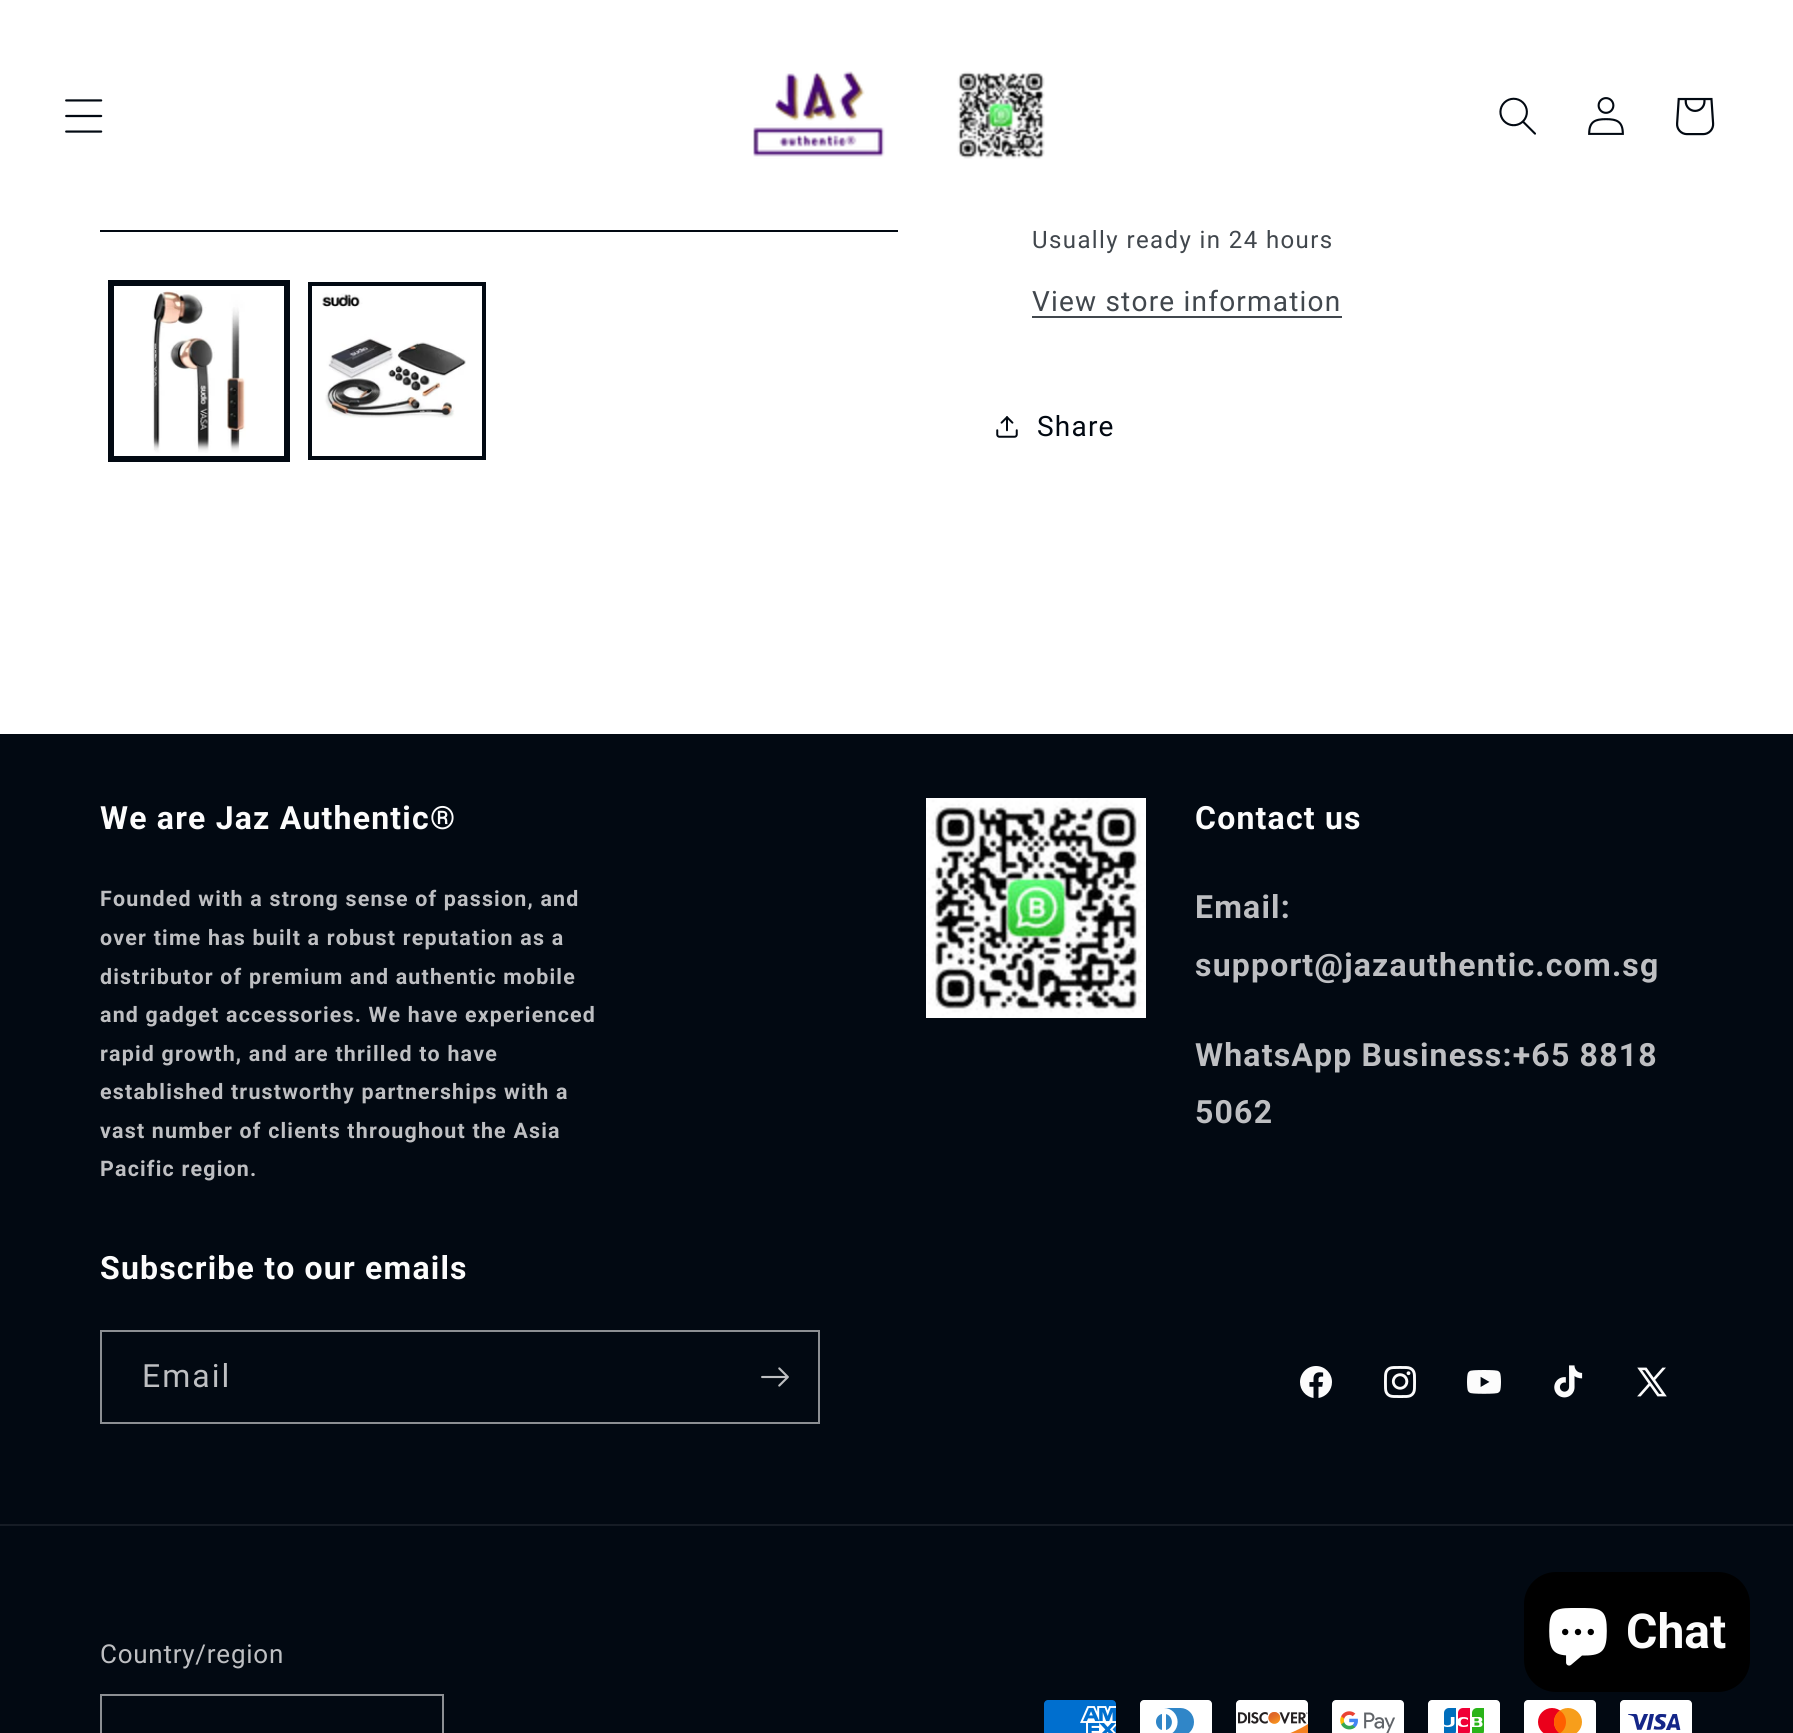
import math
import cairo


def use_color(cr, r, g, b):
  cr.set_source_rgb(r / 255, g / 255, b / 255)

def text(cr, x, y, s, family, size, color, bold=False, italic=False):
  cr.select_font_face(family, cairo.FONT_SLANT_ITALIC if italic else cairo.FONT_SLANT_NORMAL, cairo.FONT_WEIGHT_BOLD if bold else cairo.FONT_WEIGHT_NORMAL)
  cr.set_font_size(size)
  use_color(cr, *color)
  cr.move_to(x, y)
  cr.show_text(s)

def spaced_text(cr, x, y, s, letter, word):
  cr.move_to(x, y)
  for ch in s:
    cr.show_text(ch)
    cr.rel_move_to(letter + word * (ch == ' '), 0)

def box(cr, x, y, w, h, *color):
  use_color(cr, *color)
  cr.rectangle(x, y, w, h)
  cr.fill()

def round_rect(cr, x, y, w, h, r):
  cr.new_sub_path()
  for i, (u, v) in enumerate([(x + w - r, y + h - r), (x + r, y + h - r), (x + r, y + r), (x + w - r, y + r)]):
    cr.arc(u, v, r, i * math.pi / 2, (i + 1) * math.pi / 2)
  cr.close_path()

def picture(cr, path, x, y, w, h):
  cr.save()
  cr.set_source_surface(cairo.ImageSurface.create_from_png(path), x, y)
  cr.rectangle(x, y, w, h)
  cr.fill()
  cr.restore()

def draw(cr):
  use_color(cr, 255, 255, 255)
  cr.paint()
  cr.rectangle(102, -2, 794, 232)
  use_color(cr, 2, 9, 18)
  cr.set_line_width(4)
  cr.stroke()
  box(cr, 100, 0, 798, 230, 255, 255, 255)
  picture(cr, "img_01.png", 65, 99, 38, 34)
  picture(cr, "img_02.png", 753, 71, 292, 88)
  picture(cr, "img_03.png", 1499, 97, 37, 38)
  picture(cr, "img_04.png", 1588, 97, 36, 38)
  picture(cr, "img_05.png", 1676, 97, 39, 39)
  cr.rectangle(109, 281, 180, 180)
  use_color(cr, 2, 9, 18)
  cr.set_line_width(2)
  cr.stroke()
  cr.rectangle(112, 284, 174, 174)
  cr.set_line_width(4)
  cr.stroke()
  picture(cr, "img_06.png", 152, 291, 94, 162)
  cr.rectangle(310, 284, 174, 174)
  cr.stroke()
  picture(cr, "img_07.png", 322, 293, 144, 125)
  box(cr, 1032, 316, 310, 2, 65, 71, 77)
  picture(cr, "img_08.png", 996, 416, 22, 22)
  box(cr, 0, 734, 1793, 999, 2, 9, 18)
  picture(cr, "img_09.png", 926, 798, 220, 220)
  cr.rectangle(101, 1331, 718, 92)
  use_color(cr, 140, 143, 147)
  cr.set_line_width(2)
  cr.stroke()
  picture(cr, "img_10.png", 761, 1367, 28, 20)
  picture(cr, "img_11.png", 1300, 1366, 32, 32)
  picture(cr, "img_12.png", 1384, 1366, 32, 32)
  picture(cr, "img_13.png", 1467, 1370, 34, 24)
  picture(cr, "img_14.png", 1554, 1365, 29, 33)
  picture(cr, "img_15.png", 1637, 1367, 30, 30)
  box(cr, 0, 1524, 1793, 2, 22, 28, 37)
  cr.rectangle(101, 1695, 342, 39)
  use_color(cr, 140, 143, 147)
  cr.stroke()
  picture(cr, "img_16.png", 1044, 1700, 72, 33)
  picture(cr, "img_17.png", 1140, 1700, 72, 33)
  picture(cr, "img_18.png", 1236, 1700, 73, 33)
  picture(cr, "img_19.png", 1332, 1700, 72, 33)
  picture(cr, "img_20.png", 1428, 1700, 72, 33)
  picture(cr, "img_21.png", 1524, 1700, 72, 33)
  picture(cr, "img_22.png", 1620, 1700, 72, 33)
  use_color(cr, 0, 0, 0)
  round_rect(cr, 1524, 1572, 226, 120, 32)
  cr.fill()
  picture(cr, "img_23.png", 1549, 1608, 58, 58)
  cr.select_font_face("Roboto")
  cr.set_font_size(24)
  use_color(cr, 65, 71, 77)
  spaced_text(cr, 1032, 248, "Usually ready in 24 hours", 1.4, 0)
  cr.set_font_size(28)
  spaced_text(cr, 1032, 311, "View store information", 1.2, 0)
  use_color(cr, 2, 9, 18)
  spaced_text(cr, 1037, 436, "Share", 1.2, 0)
  cr.select_font_face("Roboto", cairo.FONT_SLANT_NORMAL, cairo.FONT_WEIGHT_BOLD)
  cr.set_font_size(32)
  use_color(cr, 252, 252, 252)
  spaced_text(cr, 100, 829, "We are Jaz Authentic®", 1.2, 0)
  cr.set_font_size(21.4)
  use_color(cr, 190, 191, 194)
  spaced_text(cr, 100, 906, "Founded with a strong sense of passion, and", 1.2, 0)
  spaced_text(cr, 100, 945, "over time has built a robust reputation as a", 1.2, 0)
  spaced_text(cr, 100, 984, "distributor of premium and authentic mobile", 1.2, 0)
  spaced_text(cr, 100, 1022, "and gadget accessories. We have experienced", 1.2, 0)
  spaced_text(cr, 100, 1061, "rapid growth, and are thrilled to have", 1.2, 0)
  spaced_text(cr, 100, 1099, "established trustworthy partnerships with a", 1.2, 0)
  spaced_text(cr, 100, 1138, "vast number of clients throughout the Asia", 1.2, 0)
  spaced_text(cr, 100, 1176, "Pacific region.", 1.2, 0)
  cr.set_font_size(32)
  use_color(cr, 252, 252, 252)
  spaced_text(cr, 1195, 829, "Contact us", 1.2, 0)
  use_color(cr, 190, 191, 194)
  spaced_text(cr, 1195, 918, "Email:", 1.2, 0)
  spaced_text(cr, 1195, 976, "support@jazauthentic.com.sg", 1.2, 0)
  spaced_text(cr, 1195, 1066, "WhatsApp Business:+65 8818", 1.2, 0)
  spaced_text(cr, 1195, 1123, "5062", 1.2, 0)
  use_color(cr, 252, 252, 252)
  spaced_text(cr, 100, 1279, "Subscribe to our emails", 1.2, 0)
  cr.select_font_face("Roboto")
  use_color(cr, 190, 191, 194)
  spaced_text(cr, 142, 1387, "Email", 2, 0)
  cr.set_font_size(26)
  spaced_text(cr, 100, 1663, "Country/region", 0.75, 0)
  text(cr, 1626, 1648, "Chat", "Roboto", 48, (252, 252, 252), bold=True)


surface = cairo.ImageSurface(cairo.FORMAT_RGB24, 1793, 1733)
cr = cairo.Context(surface)
options = cairo.FontOptions()
options.set_hint_metrics(cairo.HINT_METRICS_OFF)
options.set_hint_style(cairo.HINT_STYLE_NONE)
cr.set_font_options(options)
cr.set_miter_limit(4)
draw(cr)
surface.write_to_png("out.png")
